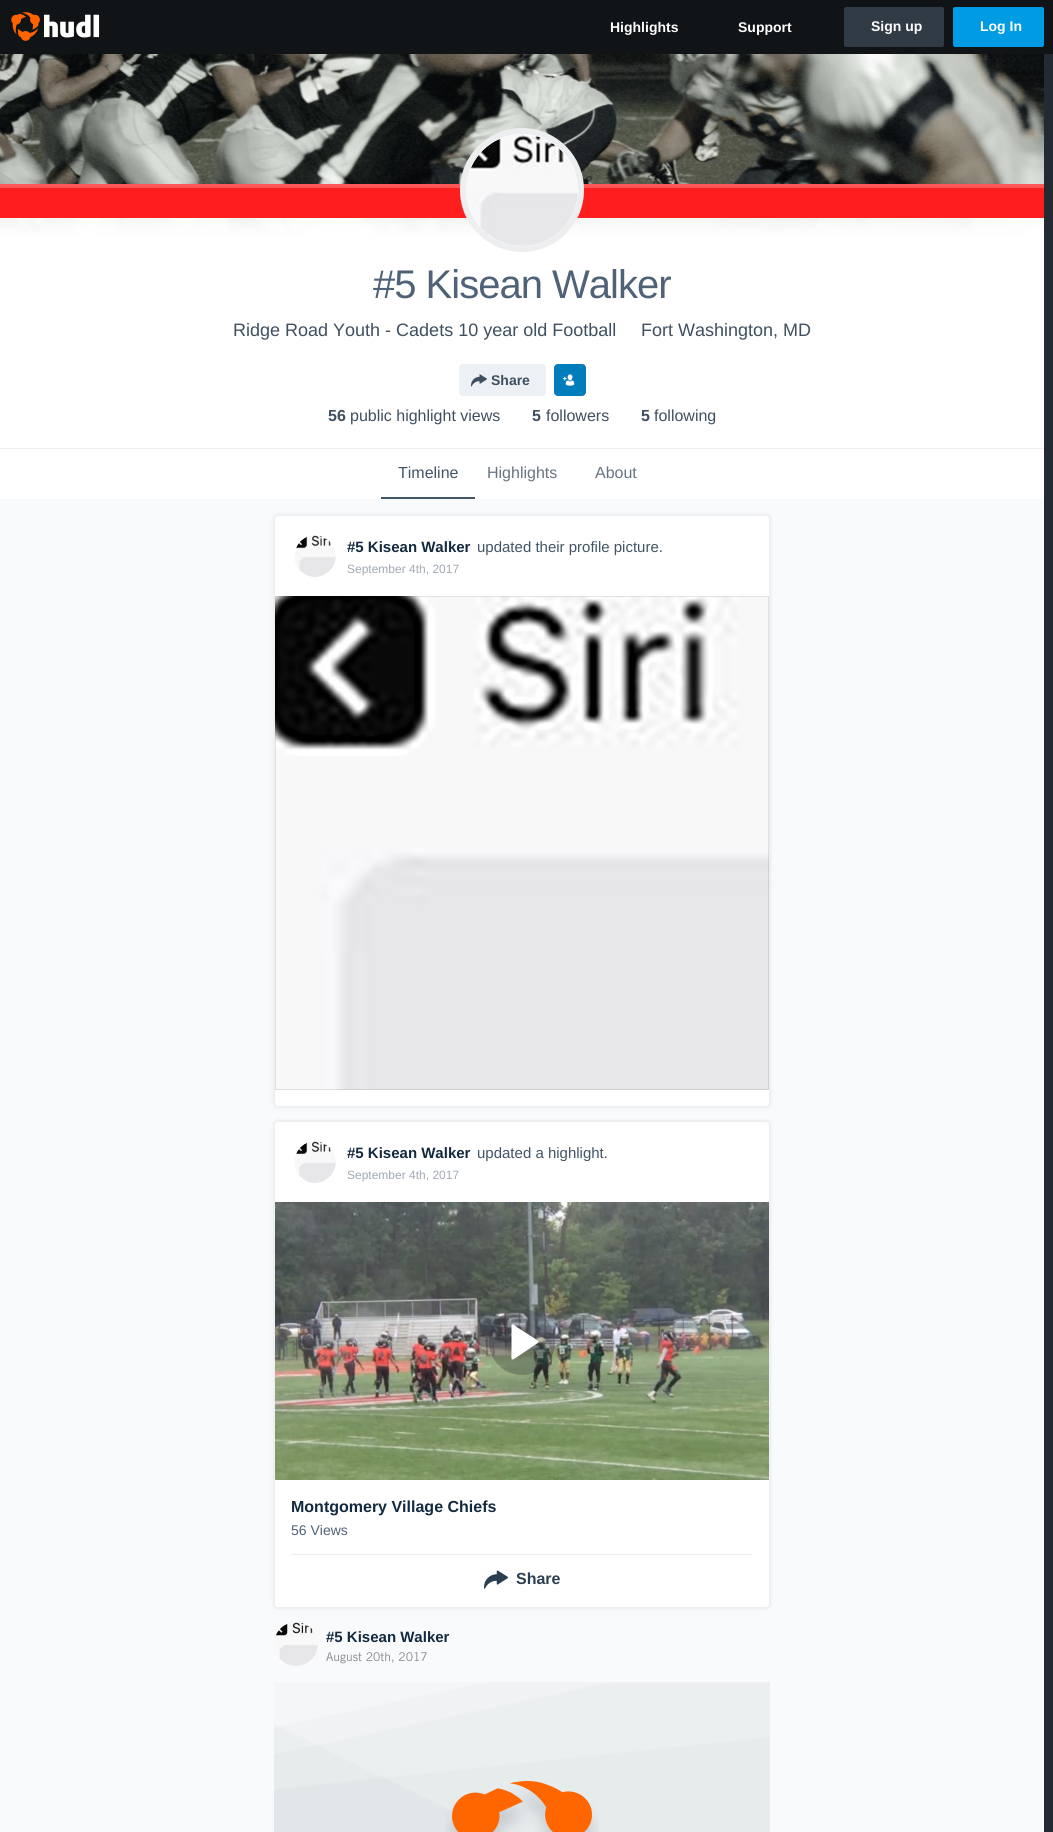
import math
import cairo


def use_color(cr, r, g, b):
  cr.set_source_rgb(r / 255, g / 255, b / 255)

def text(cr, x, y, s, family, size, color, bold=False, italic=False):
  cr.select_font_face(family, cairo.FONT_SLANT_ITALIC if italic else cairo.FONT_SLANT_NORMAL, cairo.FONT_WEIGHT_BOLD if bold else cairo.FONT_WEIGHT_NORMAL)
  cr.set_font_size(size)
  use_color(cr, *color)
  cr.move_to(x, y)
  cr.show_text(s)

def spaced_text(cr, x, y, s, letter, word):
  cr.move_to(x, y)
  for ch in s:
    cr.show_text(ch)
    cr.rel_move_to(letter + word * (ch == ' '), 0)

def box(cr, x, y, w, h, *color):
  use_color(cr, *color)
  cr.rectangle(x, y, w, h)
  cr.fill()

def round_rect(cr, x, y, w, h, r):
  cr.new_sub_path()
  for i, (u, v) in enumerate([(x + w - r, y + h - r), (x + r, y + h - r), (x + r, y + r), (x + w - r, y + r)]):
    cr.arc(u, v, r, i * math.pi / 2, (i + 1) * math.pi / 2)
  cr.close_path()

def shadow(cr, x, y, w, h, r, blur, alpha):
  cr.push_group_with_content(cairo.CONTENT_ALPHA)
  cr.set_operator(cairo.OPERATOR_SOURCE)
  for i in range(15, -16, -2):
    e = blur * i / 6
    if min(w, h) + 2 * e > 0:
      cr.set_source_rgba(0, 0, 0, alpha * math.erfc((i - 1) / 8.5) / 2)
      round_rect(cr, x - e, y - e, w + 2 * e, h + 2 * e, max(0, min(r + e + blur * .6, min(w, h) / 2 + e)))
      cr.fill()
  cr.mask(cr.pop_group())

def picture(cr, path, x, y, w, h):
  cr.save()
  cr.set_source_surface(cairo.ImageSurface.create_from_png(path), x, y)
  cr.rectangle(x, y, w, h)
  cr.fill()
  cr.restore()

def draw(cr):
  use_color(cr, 35, 42, 49)
  cr.paint()
  box(cr, 0, 0, 1053, 54, 16, 20, 23)
  picture(cr, "img_01.png", 11, 12, 89, 29)
  use_color(cr, 49, 59, 69)
  round_rect(cr, 845.5, 8.5, 97, 37, 0.5)
  cr.fill_preserve()
  cr.set_line_width(3)
  cr.stroke()
  use_color(cr, 0, 156, 227)
  round_rect(cr, 954.5, 8.5, 88, 37, 0.5)
  cr.fill_preserve()
  cr.stroke()
  picture(cr, "img_02.png", 0, 54, 1044, 181)
  gradient = cairo.LinearGradient(522, 184, 522, 448)
  gradient.add_color_stop_rgba(0, 1, 1, 1, 0.85)
  gradient.add_color_stop_rgba(0.2, 1, 1, 1, 1)
  cr.set_source(gradient)
  cr.rectangle(0, 218, 1044, 230)
  cr.fill()
  box(cr, 0, 448, 1044, 1, 237, 240, 242)
  box(cr, 0, 184, 1044, 4, 255, 87, 87)
  box(cr, 0, 188, 1044, 30, 255, 30, 30)
  use_color(cr, 255, 255, 255)
  cr.arc(522, 190, 62, 0, 2 * math.pi)
  cr.fill()
  cr.arc(522, 190, 59, 0, 2 * math.pi)
  cr.set_source_rgba(0.271, 0.322, 0.369, 0.1)
  cr.set_line_width(6)
  cr.stroke()
  picture(cr, "img_03.png", 466, 134, 112, 112)
  use_color(cr, 237, 241, 245)
  round_rect(cr, 459, 364, 87, 32, 4)
  cr.fill()
  picture(cr, "img_04.png", 471, 374, 16, 13)
  use_color(cr, 2, 125, 187)
  round_rect(cr, 554, 364, 32, 32, 4)
  cr.fill()
  picture(cr, "img_05.png", 562, 374, 13, 12)
  box(cr, 0, 449, 1044, 50, 255, 255, 255)
  box(cr, 381, 497, 94, 2, 66, 84, 101)
  box(cr, 0, 499, 1044, 1333, 249, 250, 251)
  use_color(cr, 0, 0, 0)
  shadow(cr, 274, 515, 496, 592, 4, 2, 0.1)
  use_color(cr, 255, 255, 255)
  round_rect(cr, 274.5, 515.5, 495, 591, 3.5)
  cr.fill_preserve()
  use_color(cr, 237, 240, 242)
  cr.set_line_width(1)
  cr.stroke()
  picture(cr, "img_06.png", 294, 535, 42, 42)
  picture(cr, "img_07.png", 275, 596, 494, 494)
  cr.rectangle(275.5, 596.5, 493, 493)
  cr.set_source_rgba(0, 0, 0, 0.1)
  cr.stroke()
  use_color(cr, 0, 0, 0)
  shadow(cr, 274, 1121, 496, 487, 4, 2, 0.1)
  use_color(cr, 255, 255, 255)
  round_rect(cr, 274.5, 1121.5, 495, 486, 3.5)
  cr.fill_preserve()
  use_color(cr, 237, 240, 242)
  cr.stroke()
  picture(cr, "img_06.png", 294, 1141, 42, 42)
  picture(cr, "img_08.png", 275, 1202, 494, 278)
  cr.set_source_rgba(0.137, 0.165, 0.192, 0.3)
  cr.arc(522, 1342, 33, 0, 2 * math.pi)
  cr.fill()
  use_color(cr, 255, 255, 255)
  cr.set_fill_rule(cairo.FILL_RULE_EVEN_ODD)
  cr.new_path()
  cr.move_to(511.5, 1325)
  cr.line_to(511.5, 1347.5)
  cr.curve_to(511.5, 1362.5, 509.5, 1362, 521.5, 1354)
  cr.line_to(538.5, 1342.5)
  cr.curve_to(538.5, 1342, 538.5, 1341.5, 538.5, 1341)
  cr.line_to(517.5, 1327.5)
  cr.curve_to(515.5, 1326, 513, 1323, 511.5, 1325)
  cr.close_path()
  cr.fill()
  box(cr, 291, 1554, 462, 1, 237, 240, 242)
  picture(cr, "img_09.png", 484, 1570, 24, 19)
  picture(cr, "img_10.png", 275, 1622, 43, 44)
  picture(cr, "img_11.png", 274, 1682, 496, 150)
  picture(cr, "img_12.png", 445, 1781, 154, 51)
  text(cr, 610, 32, "Highlights", "Liberation Sans", 14, (255, 255, 255), bold=True)
  text(cr, 738, 32, "Support", "Liberation Sans", 14, (255, 255, 255), bold=True)
  text(cr, 871, 31, "Sign up", "Liberation Sans", 14, (255, 255, 255), bold=True)
  text(cr, 980, 31, "Log In", "Liberation Sans", 14, (255, 255, 255), bold=True)
  cr.select_font_face("Liberation Sans")
  cr.set_font_size(40)
  use_color(cr, 80, 98, 119)
  spaced_text(cr, 373, 298, "#5 Kisean Walker", -1, 0)
  text(cr, 233, 336, "Ridge Road Youth - Cadets 10 year old Football", "Liberation Sans", 18, (63, 79, 95))
  text(cr, 641, 336, "Fort Washington, MD", "Liberation Sans", 18, (63, 79, 95))
  text(cr, 491, 385, "Share", "Liberation Sans", 14, (63, 79, 95), bold=True)
  text(cr, 328, 421, "56", "Liberation Sans", 16, (63, 79, 95), bold=True)
  text(cr, 350, 421, "public highlight views", "Liberation Sans", 16, (63, 79, 95))
  text(cr, 532, 421, "5", "Liberation Sans", 16, (63, 79, 95), bold=True)
  text(cr, 546, 421, "followers", "Liberation Sans", 16, (63, 79, 95))
  text(cr, 641, 421, "5", "Liberation Sans", 16, (63, 79, 95), bold=True)
  text(cr, 654, 421, "following", "Liberation Sans", 16, (63, 79, 95))
  text(cr, 398, 478, "Timeline", "Liberation Sans", 16, (66, 84, 101))
  text(cr, 487, 478, "Highlights", "Liberation Sans", 16, (102, 116, 130))
  text(cr, 595, 478, "About", "Liberation Sans", 16, (102, 116, 130))
  text(cr, 347, 552, "#5 Kisean Walker", "Liberation Sans", 15, (19, 41, 63), bold=True)
  text(cr, 477, 552, "updated their profile picture.", "Liberation Sans", 15, (66, 84, 101))
  text(cr, 347, 573, "September 4th, 2017", "Liberation Sans", 12, (161, 169, 178))
  text(cr, 347, 1158, "#5 Kisean Walker", "Liberation Sans", 15, (19, 41, 63), bold=True)
  text(cr, 477, 1158, "updated a highlight.", "Liberation Sans", 15, (66, 84, 101))
  text(cr, 347, 1179, "September 4th, 2017", "Liberation Sans", 12, (161, 169, 178))
  text(cr, 291, 1512, "Montgomery Village Chiefs", "Liberation Sans", 16, (19, 41, 63), bold=True)
  text(cr, 291, 1535, "56 Views", "Liberation Sans", 14, (80, 98, 119))
  text(cr, 516, 1584, "Share", "Liberation Sans", 16, (43, 62, 82), bold=True)
  text(cr, 326, 1642, "#5 Kisean Walker", "Liberation Sans", 15, (19, 41, 63), bold=True)
  text(cr, 326, 1661, "August 20th, 2017", "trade", 12, (129, 138, 138))


surface = cairo.ImageSurface(cairo.FORMAT_RGB24, 1053, 1832)
cr = cairo.Context(surface)
options = cairo.FontOptions()
options.set_hint_metrics(cairo.HINT_METRICS_OFF)
options.set_hint_style(cairo.HINT_STYLE_NONE)
cr.set_font_options(options)
cr.set_miter_limit(4)
draw(cr)
surface.write_to_png("out.png")
